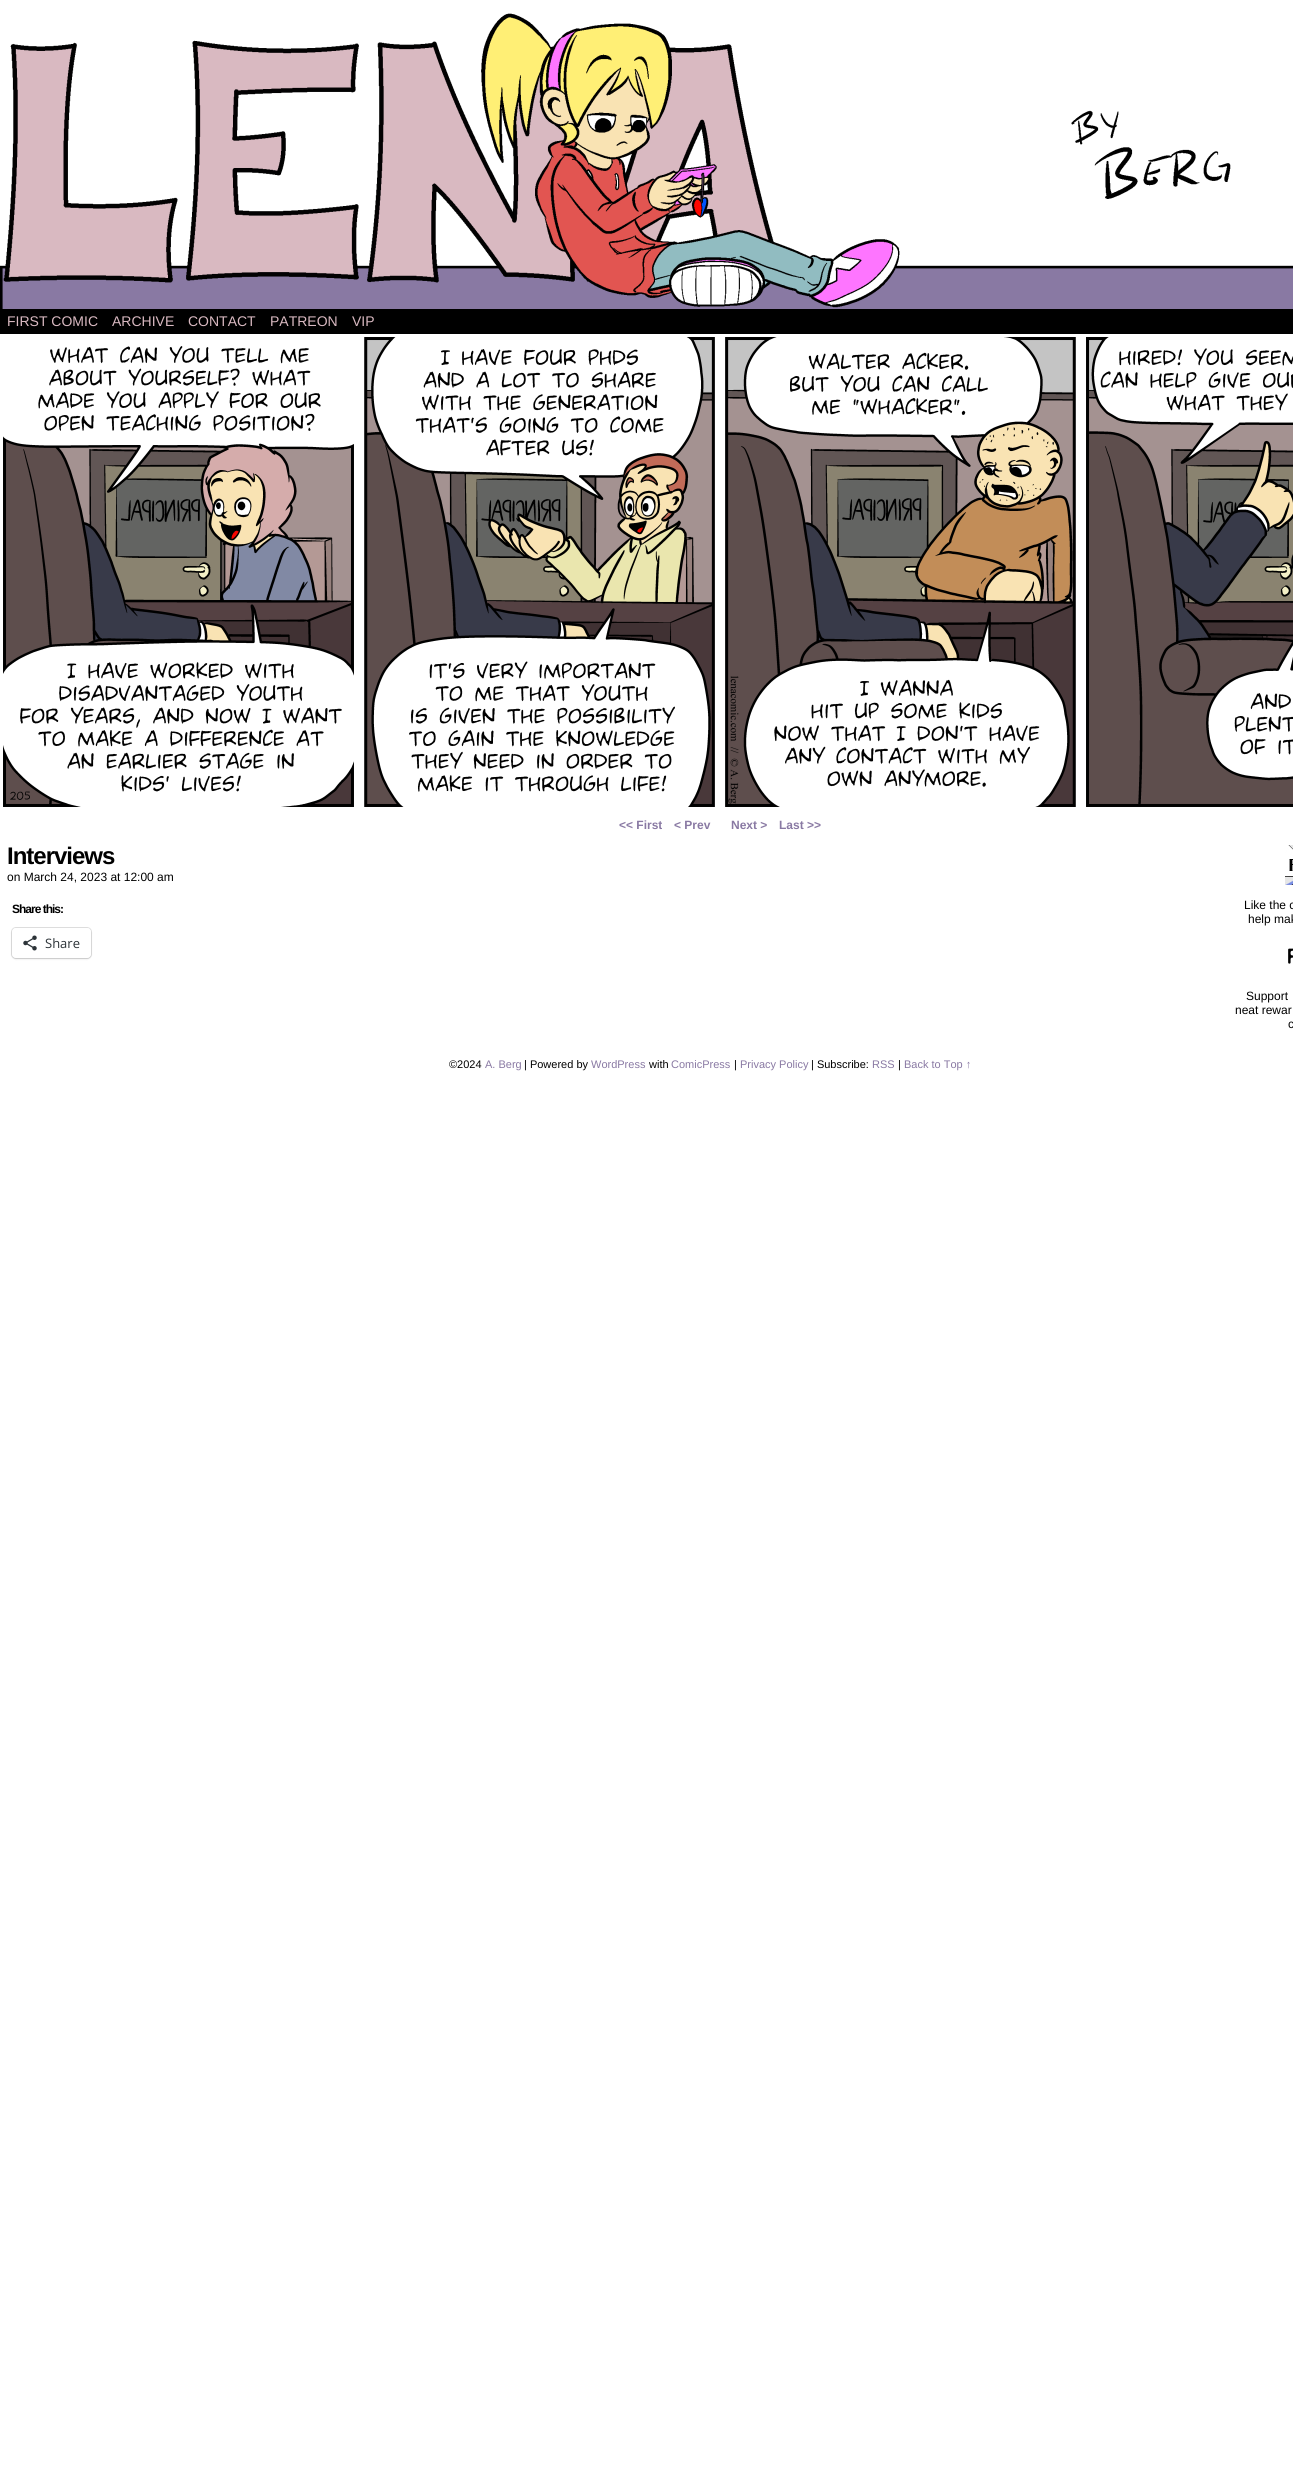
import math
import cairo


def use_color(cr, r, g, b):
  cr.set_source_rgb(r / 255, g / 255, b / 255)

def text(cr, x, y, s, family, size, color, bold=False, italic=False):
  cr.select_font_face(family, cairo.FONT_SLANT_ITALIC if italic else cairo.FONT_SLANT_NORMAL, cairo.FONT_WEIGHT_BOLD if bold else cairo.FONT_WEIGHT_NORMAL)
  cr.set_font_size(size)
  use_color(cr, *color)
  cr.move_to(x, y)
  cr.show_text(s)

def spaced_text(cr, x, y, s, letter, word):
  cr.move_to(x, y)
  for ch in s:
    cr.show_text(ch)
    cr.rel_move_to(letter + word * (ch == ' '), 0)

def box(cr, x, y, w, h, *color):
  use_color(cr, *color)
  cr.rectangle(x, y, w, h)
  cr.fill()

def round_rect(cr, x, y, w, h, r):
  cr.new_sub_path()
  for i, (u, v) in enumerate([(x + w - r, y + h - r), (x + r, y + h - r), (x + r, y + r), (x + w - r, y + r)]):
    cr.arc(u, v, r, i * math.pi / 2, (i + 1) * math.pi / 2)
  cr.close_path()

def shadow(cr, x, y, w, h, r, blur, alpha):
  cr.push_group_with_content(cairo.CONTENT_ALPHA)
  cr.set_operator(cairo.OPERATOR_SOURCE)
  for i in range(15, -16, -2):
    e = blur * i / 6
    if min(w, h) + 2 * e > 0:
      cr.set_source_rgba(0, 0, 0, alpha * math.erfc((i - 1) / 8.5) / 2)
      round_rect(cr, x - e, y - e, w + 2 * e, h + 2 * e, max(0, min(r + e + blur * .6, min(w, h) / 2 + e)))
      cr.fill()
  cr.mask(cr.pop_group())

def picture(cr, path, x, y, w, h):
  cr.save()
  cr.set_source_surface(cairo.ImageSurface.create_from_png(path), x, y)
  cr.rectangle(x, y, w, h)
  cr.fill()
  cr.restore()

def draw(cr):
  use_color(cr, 255, 255, 255)
  cr.paint()
  picture(cr, "img_01.png", 0, 13, 1293, 296)
  box(cr, 0, 309, 1293, 25, 0, 0, 0)
  picture(cr, "img_02.png", 3, 337, 1290, 470)
  round_rect(cr, 11.5, 927.5, 80, 31, 4.5)
  use_color(cr, 224, 224, 224)
  cr.set_line_width(1)
  cr.stroke()
  use_color(cr, 0, 0, 0)
  shadow(cr, 12, 929, 79, 30, 4, 1, 0.12)
  use_color(cr, 255, 255, 255)
  round_rect(cr, 12, 928, 79, 30, 4)
  cr.fill()
  picture(cr, "img_03.png", 23, 935, 14, 16)
  picture(cr, "img_04.png", 1285, 845, 8, 40)
  picture(cr, "img_05.png", 1288, 948, 5, 16)
  text(cr, 7, 326, "FIRST COMIC", "Liberation Sans", 14, (217, 185, 193))
  text(cr, 112, 326, "ARCHIVE", "Liberation Sans", 14, (217, 185, 193))
  text(cr, 188, 326, "CONTACT", "Liberation Sans", 14, (217, 185, 193))
  text(cr, 270, 326, "PATREON", "Liberation Sans", 14, (217, 185, 193))
  text(cr, 352, 326, "VIP", "Liberation Sans", 14, (217, 185, 193))
  text(cr, 619, 829, "<< First", "Liberation Sans", 12, (137, 121, 163), bold=True)
  text(cr, 674, 829, "< Prev", "Liberation Sans", 12, (137, 121, 163), bold=True)
  text(cr, 731, 829, "Next >", "Liberation Sans", 12, (137, 121, 163), bold=True)
  text(cr, 779, 829, "Last >>", "Liberation Sans", 12, (137, 121, 163), bold=True)
  cr.set_font_size(24)
  use_color(cr, 0, 0, 0)
  spaced_text(cr, 7, 864, "Interviews", -1, 0)
  text(cr, 7, 881, "on March 24, 2023 at 12:00 am", "Liberation Sans", 12, (0, 0, 0))
  cr.select_font_face("Liberation Sans", cairo.FONT_SLANT_NORMAL, cairo.FONT_WEIGHT_BOLD)
  spaced_text(cr, 12, 913, "Share this:", -1, 0)
  text(cr, 45, 948, "Share", "Open Sans", 13, (44, 51, 56))
  text(cr, 1244, 909, "Like the c", "Liberation Sans", 12, (0, 0, 0))
  text(cr, 1248, 923, "help mak", "Liberation Sans", 12, (0, 0, 0))
  text(cr, 1246, 1000, "Support", "Liberation Sans", 12, (0, 0, 0))
  text(cr, 1235, 1014, "neat rewar", "Liberation Sans", 12, (0, 0, 0))
  text(cr, 1288, 1028, "c", "Liberation Sans", 12, (0, 0, 0))
  text(cr, 449, 1068, "©2024", "Liberation Sans", 11, (0, 0, 0))
  text(cr, 485, 1068, "A. Berg", "Liberation Sans", 11, (137, 121, 163))
  text(cr, 524, 1068, "| Powered by", "Liberation Sans", 11, (0, 0, 0))
  text(cr, 591, 1068, "WordPress", "Liberation Sans", 11, (137, 121, 163))
  text(cr, 649, 1068, "with", "Liberation Sans", 11, (0, 0, 0))
  text(cr, 671, 1068, "ComicPress", "Liberation Sans", 11, (137, 121, 163))
  text(cr, 734, 1068, "|", "Liberation Sans", 11, (0, 0, 0))
  text(cr, 740, 1068, "Privacy Policy", "Liberation Sans", 11, (137, 121, 163))
  text(cr, 811, 1068, "| Subscribe:", "Liberation Sans", 11, (0, 0, 0))
  text(cr, 872, 1068, "RSS", "Liberation Sans", 11, (137, 121, 163))
  text(cr, 898, 1068, "|", "Liberation Sans", 11, (0, 0, 0))
  text(cr, 904, 1068, "Back to Top ↑", "Liberation Sans", 11, (137, 121, 163))


surface = cairo.ImageSurface(cairo.FORMAT_RGB24, 1293, 2487)
cr = cairo.Context(surface)
options = cairo.FontOptions()
options.set_hint_metrics(cairo.HINT_METRICS_OFF)
options.set_hint_style(cairo.HINT_STYLE_NONE)
cr.set_font_options(options)
cr.set_miter_limit(4)
draw(cr)
surface.write_to_png("out.png")
